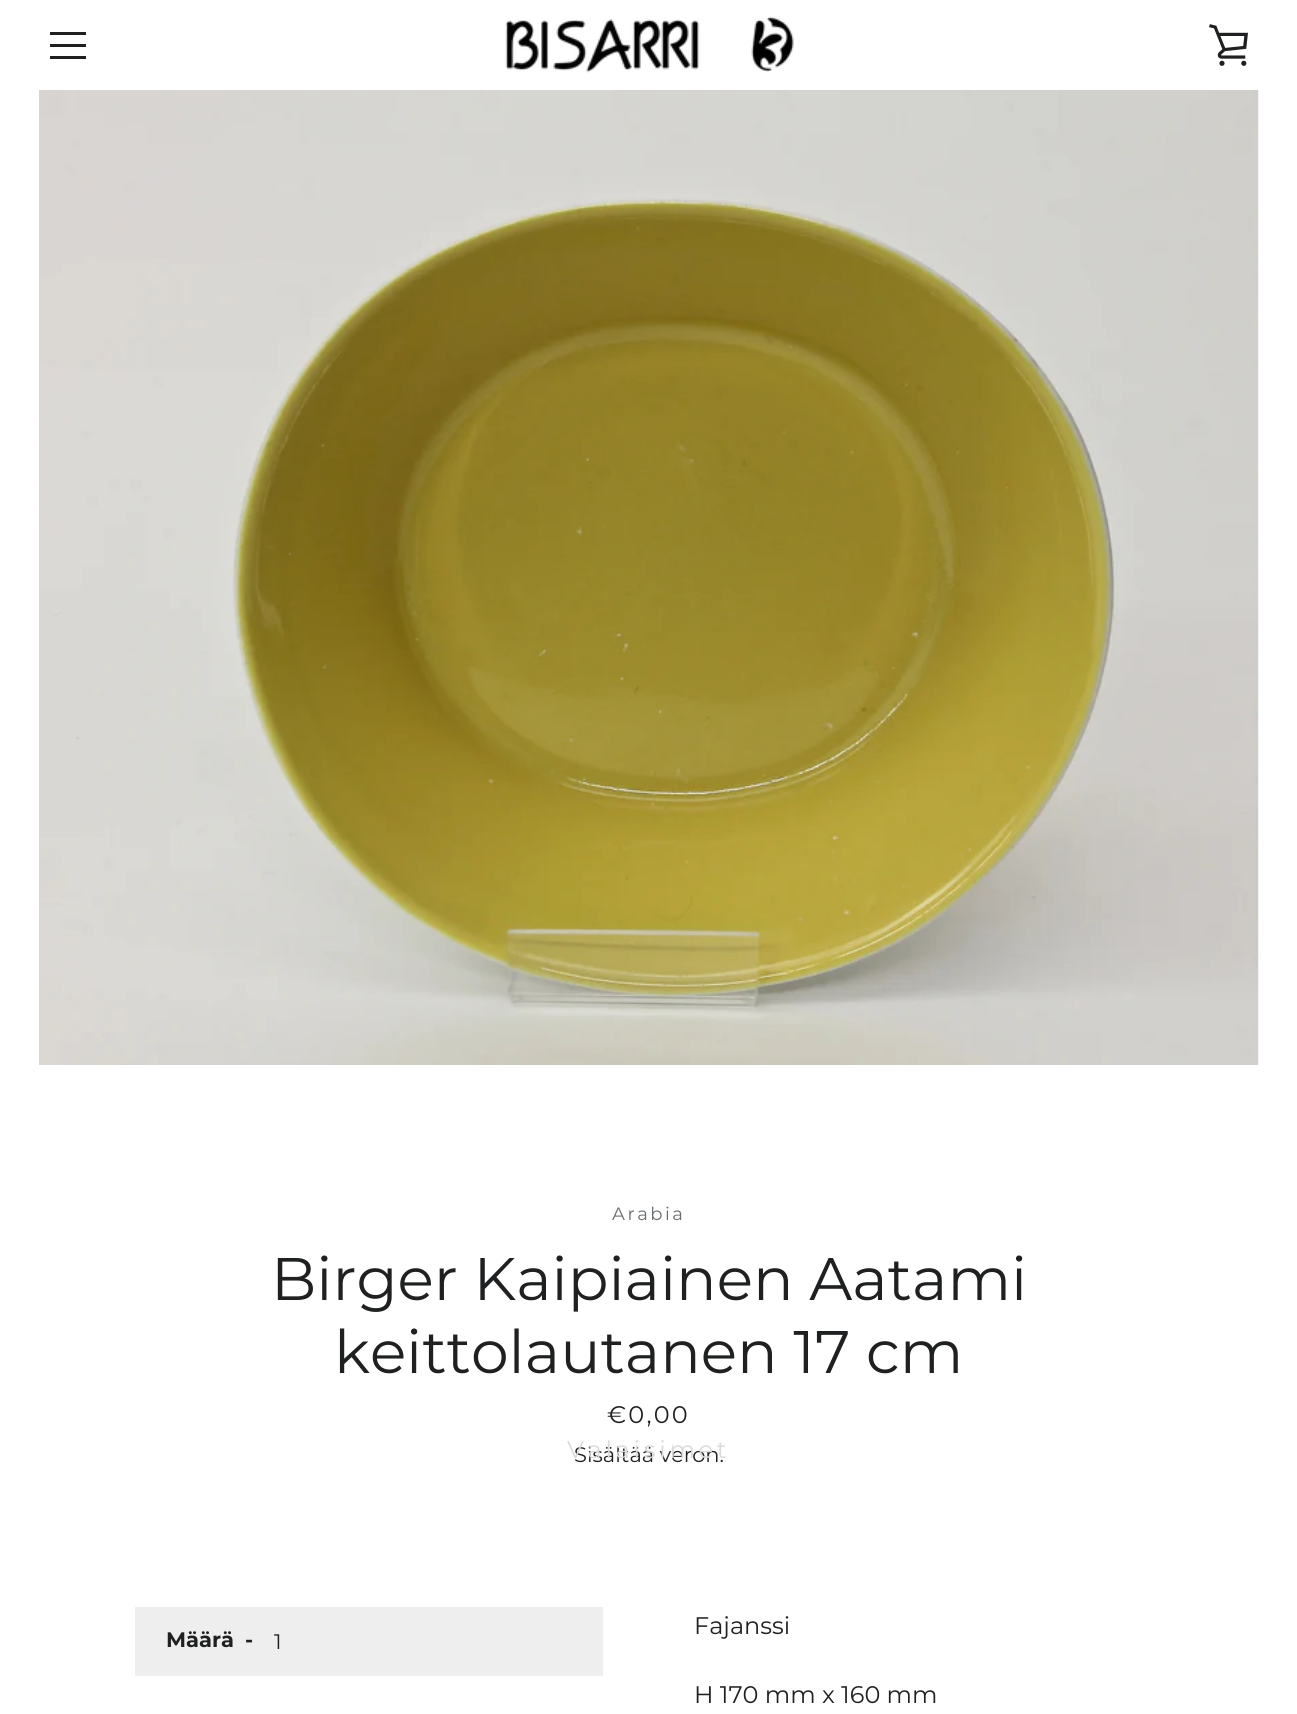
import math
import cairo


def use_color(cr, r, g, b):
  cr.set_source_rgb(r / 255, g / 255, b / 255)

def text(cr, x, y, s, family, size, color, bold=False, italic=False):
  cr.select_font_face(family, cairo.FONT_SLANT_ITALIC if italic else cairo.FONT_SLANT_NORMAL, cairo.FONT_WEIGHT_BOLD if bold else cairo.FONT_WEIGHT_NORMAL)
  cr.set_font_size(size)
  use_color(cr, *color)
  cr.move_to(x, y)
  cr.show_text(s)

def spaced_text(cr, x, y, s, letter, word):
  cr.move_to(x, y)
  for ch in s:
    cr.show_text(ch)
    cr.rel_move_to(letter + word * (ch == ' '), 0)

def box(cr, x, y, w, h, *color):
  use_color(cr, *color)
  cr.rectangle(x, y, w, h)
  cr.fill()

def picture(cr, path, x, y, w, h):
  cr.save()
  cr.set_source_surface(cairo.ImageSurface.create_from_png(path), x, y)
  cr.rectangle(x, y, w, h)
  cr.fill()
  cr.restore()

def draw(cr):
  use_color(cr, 255, 255, 255)
  cr.paint()
  picture(cr, "img_01.png", 39, 90, 1220, 975)
  box(cr, 135, 1607, 468, 69, 238, 238, 238)
  picture(cr, "img_02.png", 505, 16, 289, 57)
  picture(cr, "img_03.png", 1209, 24, 39, 42)
  box(cr, 50, 32, 36, 3, 31, 32, 33)
  box(cr, 50, 44, 36, 3, 31, 32, 33)
  box(cr, 50, 56, 36, 3, 31, 32, 33)
  cr.select_font_face("Montserrat")
  cr.set_font_size(18)
  use_color(cr, 105, 108, 112)
  spaced_text(cr, 612, 1220, "Arabia", 2.5, 0)
  text(cr, 271, 1300, "Birger Kaipiainen Aatami", "Montserrat", 60, (31, 32, 33))
  text(cr, 334, 1373, "keittolautanen 17 cm", "Montserrat", 60, (31, 32, 33))
  cr.set_font_size(24)
  spaced_text(cr, 607, 1423, "€0,00", 2.25, 0)
  text(cr, 574, 1462, "Sisältää veron.", "Montserrat", 21, (31, 32, 33))
  text(cr, 166, 1647, "Määrä", "Montserrat", 21, (31, 32, 33), bold=True)
  text(cr, 245, 1647, "-", "Montserrat", 21, (31, 32, 33), bold=True)
  text(cr, 274, 1649, "1", "Montserrat", 21, (31, 32, 33))
  text(cr, 694, 1634, "Fajanssi", "Montserrat", 24, (31, 32, 33))
  text(cr, 694, 1703, "H 170 mm x 160 mm", "Montserrat", 24, (31, 32, 33))
  use_color(cr, 218, 218, 218)
  spaced_text(cr, 567, 1458, "Valaisimet", 3.75, 0)


surface = cairo.ImageSurface(cairo.FORMAT_RGB24, 1297, 1714)
cr = cairo.Context(surface)
options = cairo.FontOptions()
options.set_hint_metrics(cairo.HINT_METRICS_OFF)
options.set_hint_style(cairo.HINT_STYLE_NONE)
cr.set_font_options(options)
cr.set_miter_limit(4)
draw(cr)
surface.write_to_png("out.png")
